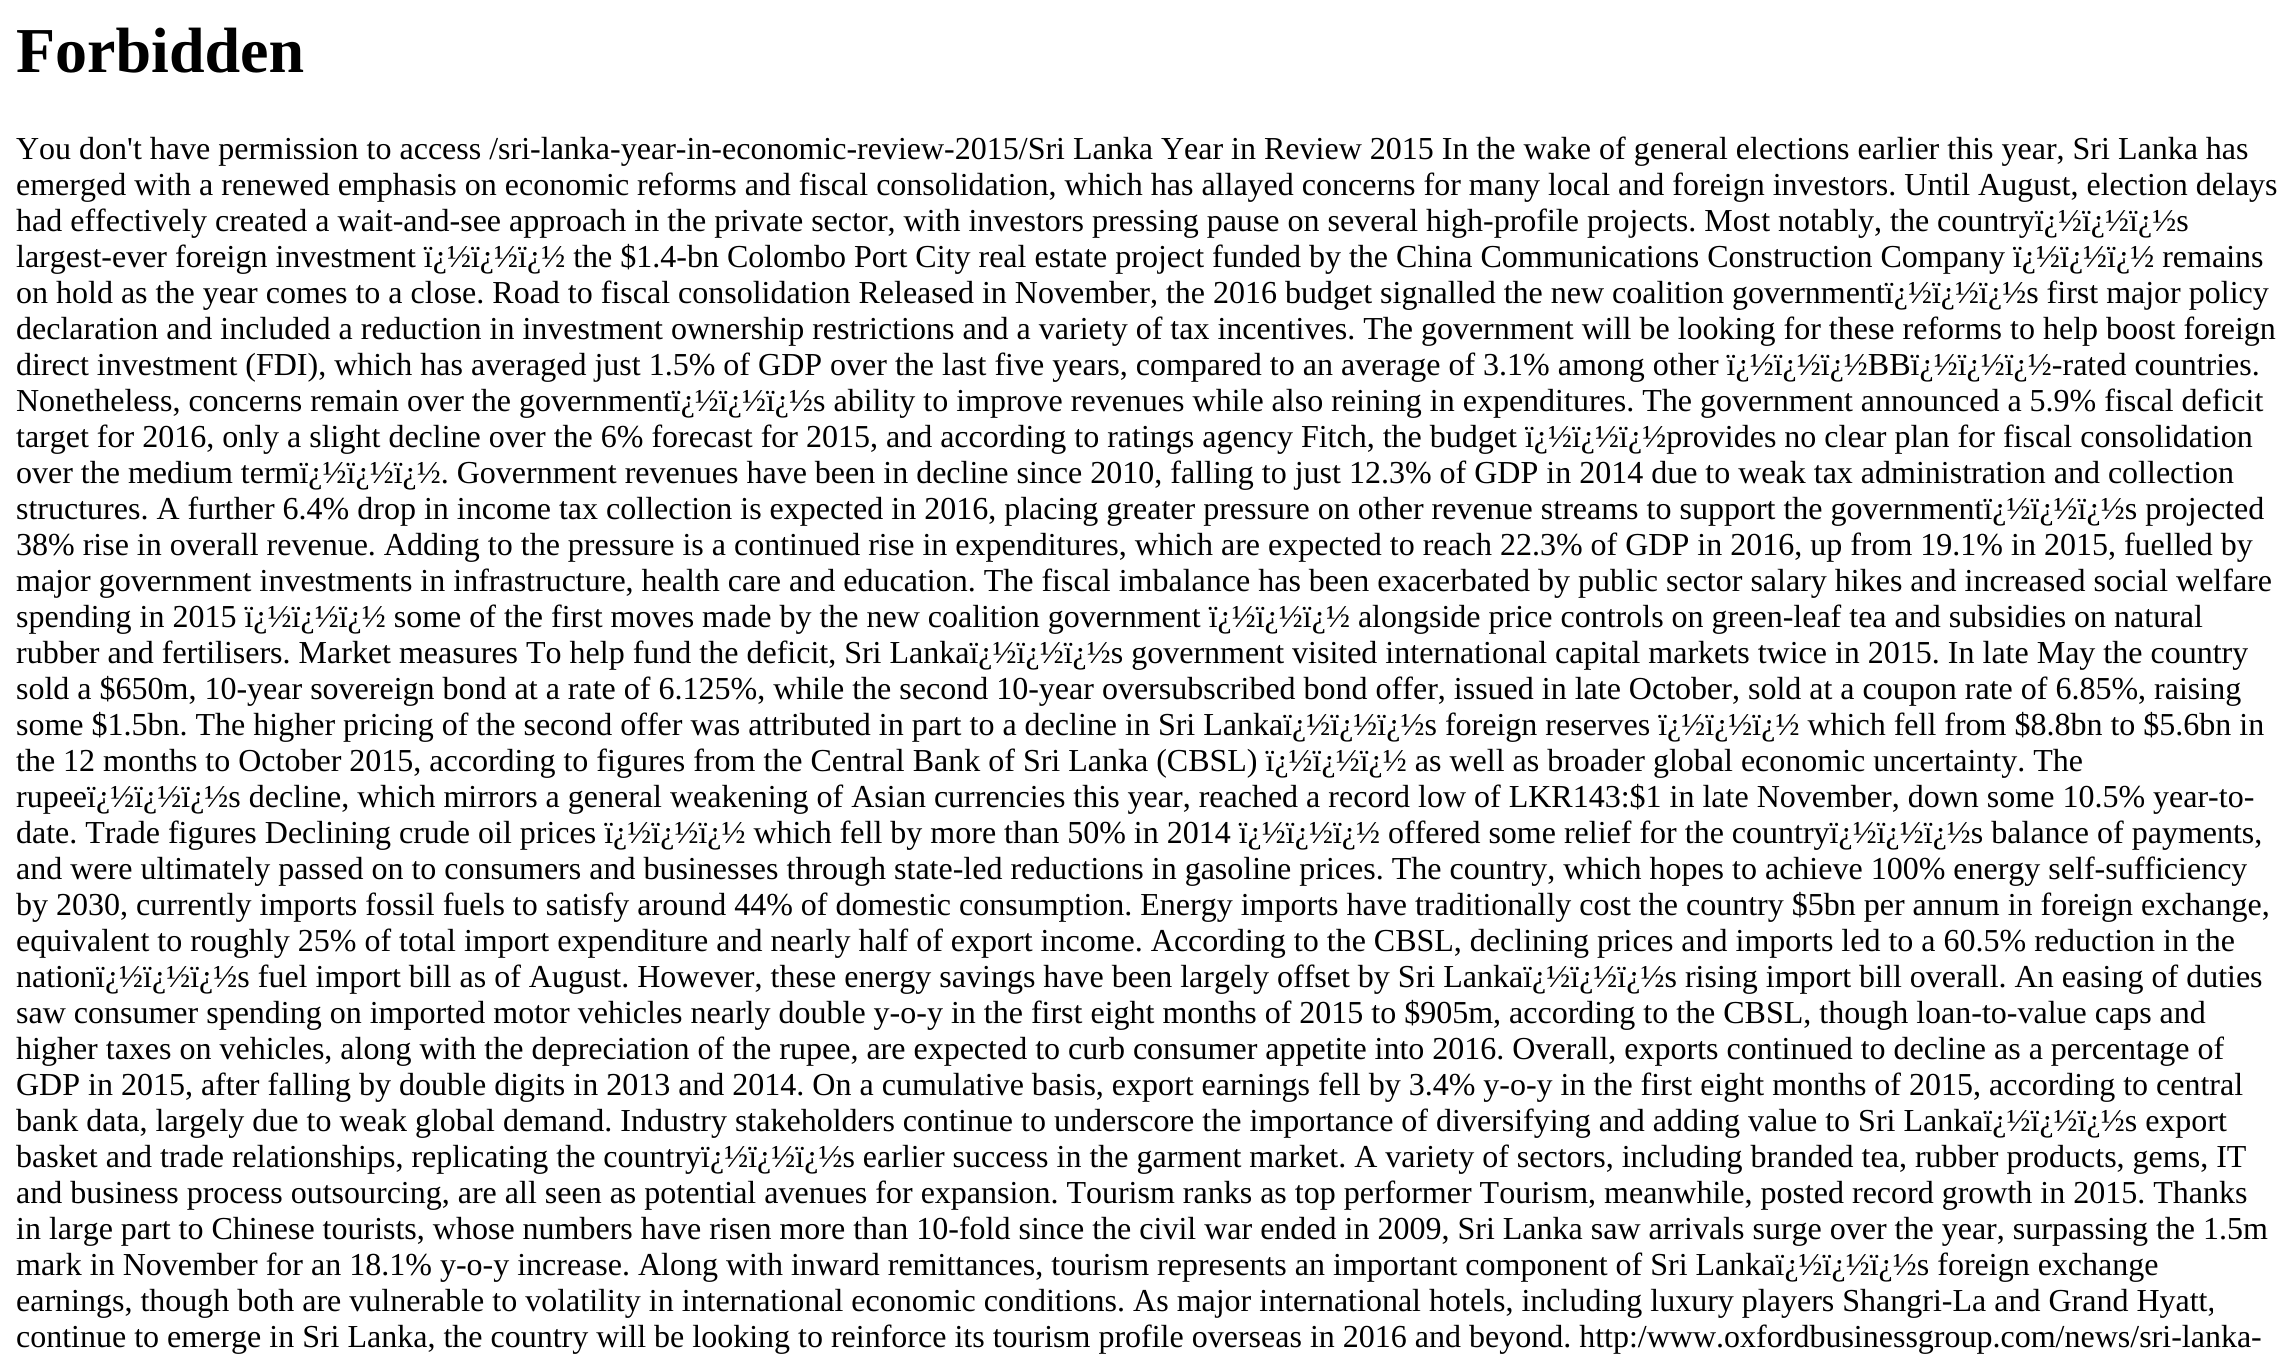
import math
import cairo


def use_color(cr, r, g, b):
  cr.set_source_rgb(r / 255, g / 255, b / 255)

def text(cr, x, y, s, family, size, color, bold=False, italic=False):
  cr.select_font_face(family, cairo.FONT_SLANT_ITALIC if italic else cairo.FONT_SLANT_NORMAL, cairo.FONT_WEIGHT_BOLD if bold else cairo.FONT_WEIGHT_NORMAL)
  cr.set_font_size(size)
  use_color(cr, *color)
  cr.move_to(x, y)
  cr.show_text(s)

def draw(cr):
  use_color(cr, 255, 255, 255)
  cr.paint()
  text(cr, 16, 72, "Forbidden", "Liberation Serif", 64, (0, 0, 0), bold=True)
  text(cr, 16, 159, "You don't have permission to access /sri-lanka-year-in-economic-review-2015/Sri Lanka Year in Review 2015 In the wake of general elections earlier this year, Sri Lanka has", "Liberation Serif", 32, (0, 0, 0))
  text(cr, 16, 195, "emerged with a renewed emphasis on economic reforms and fiscal consolidation, which has allayed concerns for many local and foreign investors. Until August, election delays", "Liberation Serif", 32, (0, 0, 0))
  text(cr, 16, 231, "had effectively created a wait-and-see approach in the private sector, with investors pressing pause on several high-profile projects. Most notably, the countryï¿½ï¿½ï¿½s", "Liberation Serif", 32, (0, 0, 0))
  text(cr, 16, 267, "largest-ever foreign investment ï¿½ï¿½ï¿½ the $1.4-bn Colombo Port City real estate project funded by the China Communications Construction Company ï¿½ï¿½ï¿½ remains", "Liberation Serif", 32, (0, 0, 0))
  text(cr, 16, 303, "on hold as the year comes to a close. Road to fiscal consolidation Released in November, the 2016 budget signalled the new coalition governmentï¿½ï¿½ï¿½s first major policy", "Liberation Serif", 32, (0, 0, 0))
  text(cr, 16, 339, "declaration and included a reduction in investment ownership restrictions and a variety of tax incentives. The government will be looking for these reforms to help boost foreign", "Liberation Serif", 32, (0, 0, 0))
  text(cr, 16, 375, "direct investment (FDI), which has averaged just 1.5% of GDP over the last five years, compared to an average of 3.1% among other ï¿½ï¿½ï¿½BBï¿½ï¿½ï¿½-rated countries.", "Liberation Serif", 32, (0, 0, 0))
  text(cr, 16, 411, "Nonetheless, concerns remain over the governmentï¿½ï¿½ï¿½s ability to improve revenues while also reining in expenditures. The government announced a 5.9% fiscal deficit", "Liberation Serif", 32, (0, 0, 0))
  text(cr, 16, 447, "target for 2016, only a slight decline over the 6% forecast for 2015, and according to ratings agency Fitch, the budget ï¿½ï¿½ï¿½provides no clear plan for fiscal consolidation", "Liberation Serif", 32, (0, 0, 0))
  text(cr, 16, 483, "over the medium termï¿½ï¿½ï¿½. Government revenues have been in decline since 2010, falling to just 12.3% of GDP in 2014 due to weak tax administration and collection", "Liberation Serif", 32, (0, 0, 0))
  text(cr, 16, 519, "structures. A further 6.4% drop in income tax collection is expected in 2016, placing greater pressure on other revenue streams to support the governmentï¿½ï¿½ï¿½s projected", "Liberation Serif", 32, (0, 0, 0))
  text(cr, 16, 555, "38% rise in overall revenue. Adding to the pressure is a continued rise in expenditures, which are expected to reach 22.3% of GDP in 2016, up from 19.1% in 2015, fuelled by", "Liberation Serif", 32, (0, 0, 0))
  text(cr, 16, 591, "major government investments in infrastructure, health care and education. The fiscal imbalance has been exacerbated by public sector salary hikes and increased social welfare", "Liberation Serif", 32, (0, 0, 0))
  text(cr, 16, 627, "spending in 2015 ï¿½ï¿½ï¿½ some of the first moves made by the new coalition government ï¿½ï¿½ï¿½ alongside price controls on green-leaf tea and subsidies on natural", "Liberation Serif", 32, (0, 0, 0))
  text(cr, 16, 663, "rubber and fertilisers. Market measures To help fund the deficit, Sri Lankaï¿½ï¿½ï¿½s government visited international capital markets twice in 2015. In late May the country", "Liberation Serif", 32, (0, 0, 0))
  text(cr, 16, 699, "sold a $650m, 10-year sovereign bond at a rate of 6.125%, while the second 10-year oversubscribed bond offer, issued in late October, sold at a coupon rate of 6.85%, raising", "Liberation Serif", 32, (0, 0, 0))
  text(cr, 16, 735, "some $1.5bn. The higher pricing of the second offer was attributed in part to a decline in Sri Lankaï¿½ï¿½ï¿½s foreign reserves ï¿½ï¿½ï¿½ which fell from $8.8bn to $5.6bn in", "Liberation Serif", 32, (0, 0, 0))
  text(cr, 16, 771, "the 12 months to October 2015, according to figures from the Central Bank of Sri Lanka (CBSL) ï¿½ï¿½ï¿½ as well as broader global economic uncertainty. The", "Liberation Serif", 32, (0, 0, 0))
  text(cr, 16, 807, "rupeeï¿½ï¿½ï¿½s decline, which mirrors a general weakening of Asian currencies this year, reached a record low of LKR143:$1 in late November, down some 10.5% year-to-", "Liberation Serif", 32, (0, 0, 0))
  text(cr, 16, 843, "date. Trade figures Declining crude oil prices ï¿½ï¿½ï¿½ which fell by more than 50% in 2014 ï¿½ï¿½ï¿½ offered some relief for the countryï¿½ï¿½ï¿½s balance of payments,", "Liberation Serif", 32, (0, 0, 0))
  text(cr, 16, 879, "and were ultimately passed on to consumers and businesses through state-led reductions in gasoline prices. The country, which hopes to achieve 100% energy self-sufficiency", "Liberation Serif", 32, (0, 0, 0))
  text(cr, 16, 915, "by 2030, currently imports fossil fuels to satisfy around 44% of domestic consumption. Energy imports have traditionally cost the country $5bn per annum in foreign exchange,", "Liberation Serif", 32, (0, 0, 0))
  text(cr, 16, 951, "equivalent to roughly 25% of total import expenditure and nearly half of export income. According to the CBSL, declining prices and imports led to a 60.5% reduction in the", "Liberation Serif", 32, (0, 0, 0))
  text(cr, 16, 987, "nationï¿½ï¿½ï¿½s fuel import bill as of August. However, these energy savings have been largely offset by Sri Lankaï¿½ï¿½ï¿½s rising import bill overall. An easing of duties", "Liberation Serif", 32, (0, 0, 0))
  text(cr, 16, 1023, "saw consumer spending on imported motor vehicles nearly double y-o-y in the first eight months of 2015 to $905m, according to the CBSL, though loan-to-value caps and", "Liberation Serif", 32, (0, 0, 0))
  text(cr, 16, 1059, "higher taxes on vehicles, along with the depreciation of the rupee, are expected to curb consumer appetite into 2016. Overall, exports continued to decline as a percentage of", "Liberation Serif", 32, (0, 0, 0))
  text(cr, 16, 1095, "GDP in 2015, after falling by double digits in 2013 and 2014. On a cumulative basis, export earnings fell by 3.4% y-o-y in the first eight months of 2015, according to central", "Liberation Serif", 32, (0, 0, 0))
  text(cr, 16, 1131, "bank data, largely due to weak global demand. Industry stakeholders continue to underscore the importance of diversifying and adding value to Sri Lankaï¿½ï¿½ï¿½s export", "Liberation Serif", 32, (0, 0, 0))
  text(cr, 16, 1167, "basket and trade relationships, replicating the countryï¿½ï¿½ï¿½s earlier success in the garment market. A variety of sectors, including branded tea, rubber products, gems, IT", "Liberation Serif", 32, (0, 0, 0))
  text(cr, 16, 1203, "and business process outsourcing, are all seen as potential avenues for expansion. Tourism ranks as top performer Tourism, meanwhile, posted record growth in 2015. Thanks", "Liberation Serif", 32, (0, 0, 0))
  text(cr, 16, 1239, "in large part to Chinese tourists, whose numbers have risen more than 10-fold since the civil war ended in 2009, Sri Lanka saw arrivals surge over the year, surpassing the 1.5m", "Liberation Serif", 32, (0, 0, 0))
  text(cr, 16, 1275, "mark in November for an 18.1% y-o-y increase. Along with inward remittances, tourism represents an important component of Sri Lankaï¿½ï¿½ï¿½s foreign exchange", "Liberation Serif", 32, (0, 0, 0))
  text(cr, 16, 1311, "earnings, though both are vulnerable to volatility in international economic conditions. As major international hotels, including luxury players Shangri-La and Grand Hyatt,", "Liberation Serif", 32, (0, 0, 0))
  text(cr, 16, 1347, "continue to emerge in Sri Lanka, the country will be looking to reinforce its tourism profile overseas in 2016 and beyond. http:/www.oxfordbusinessgroup.com/news/sri-lanka-", "Liberation Serif", 32, (0, 0, 0))


surface = cairo.ImageSurface(cairo.FORMAT_RGB24, 2296, 1363)
cr = cairo.Context(surface)
options = cairo.FontOptions()
options.set_hint_metrics(cairo.HINT_METRICS_OFF)
options.set_hint_style(cairo.HINT_STYLE_NONE)
cr.set_font_options(options)
cr.set_miter_limit(4)
draw(cr)
surface.write_to_png("out.png")
